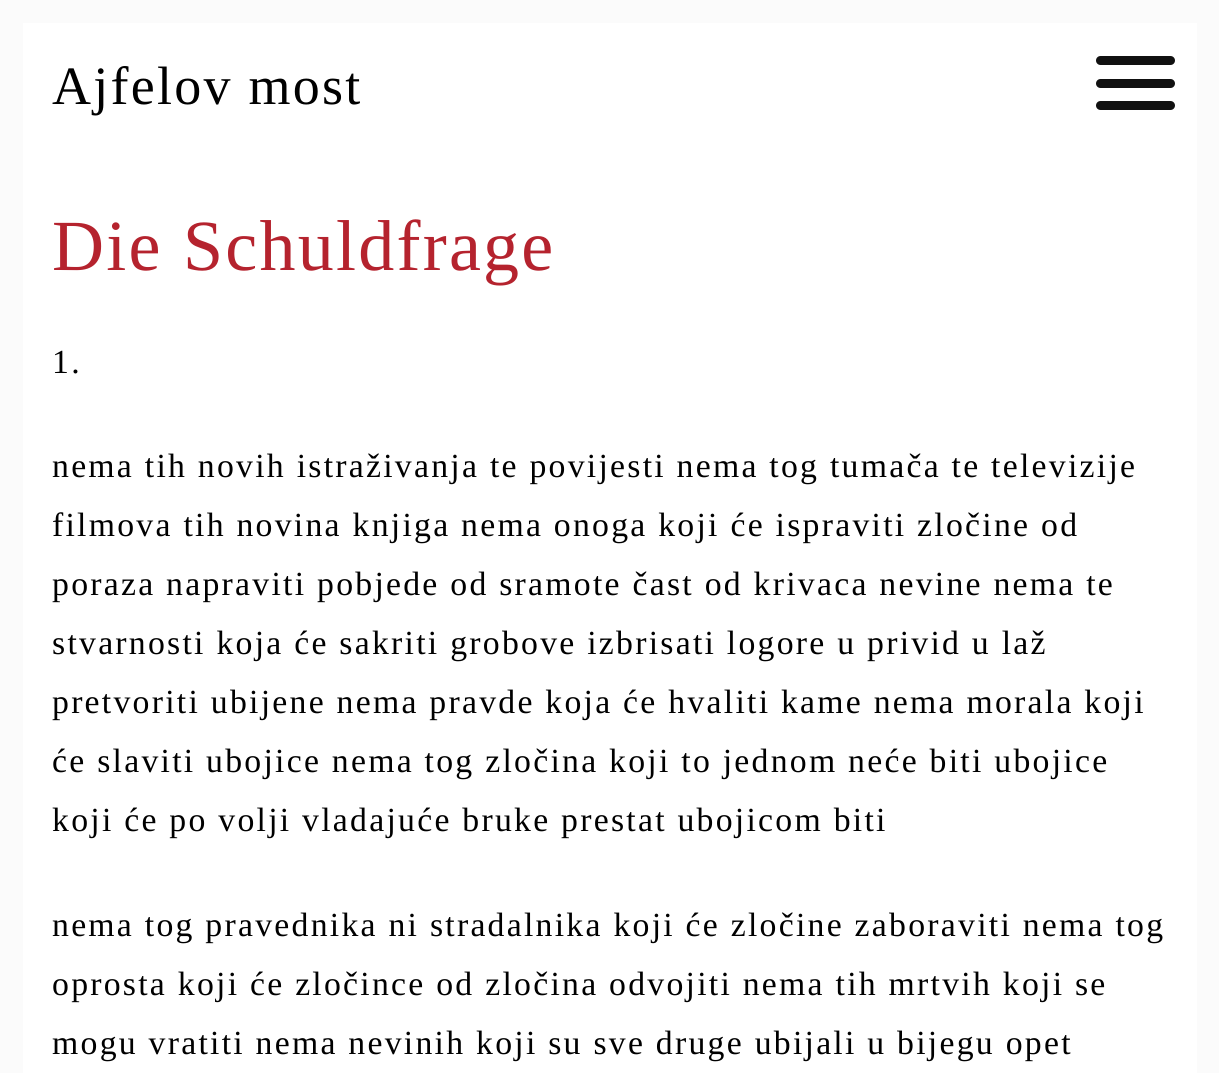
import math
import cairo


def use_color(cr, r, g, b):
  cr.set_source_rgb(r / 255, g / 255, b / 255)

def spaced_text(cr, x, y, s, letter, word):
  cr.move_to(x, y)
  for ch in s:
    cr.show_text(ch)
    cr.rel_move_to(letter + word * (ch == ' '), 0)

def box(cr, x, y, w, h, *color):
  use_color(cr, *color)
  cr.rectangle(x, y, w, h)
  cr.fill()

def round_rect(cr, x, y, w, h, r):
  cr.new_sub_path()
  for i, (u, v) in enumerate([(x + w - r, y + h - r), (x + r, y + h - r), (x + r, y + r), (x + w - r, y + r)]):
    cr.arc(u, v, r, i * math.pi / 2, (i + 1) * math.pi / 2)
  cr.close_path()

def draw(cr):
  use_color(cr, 251, 251, 251)
  cr.paint()
  box(cr, 23, 23, 1174, 1050, 255, 255, 255)
  use_color(cr, 17, 17, 17)
  round_rect(cr, 1096, 79, 79, 9, 4.5)
  cr.fill()
  round_rect(cr, 1096, 56, 79, 9, 4.5)
  cr.fill()
  round_rect(cr, 1096, 101, 79, 9, 4.5)
  cr.fill()
  cr.select_font_face("Liberation Serif")
  cr.set_font_size(54)
  use_color(cr, 0, 0, 0)
  spaced_text(cr, 52, 104, "Ajfelov most", 2.25, 0)
  cr.set_font_size(72)
  use_color(cr, 181, 35, 46)
  spaced_text(cr, 52, 270, "Die Schuldfrage", 2.25, 0)
  cr.set_font_size(33.75)
  use_color(cr, 0, 0, 0)
  spaced_text(cr, 52, 373, "1.", 2.25, 0)
  spaced_text(cr, 52, 477, "nema tih novih istraživanja te povijesti nema tog tumača te televizije", 2.25, 0)
  spaced_text(cr, 52, 536, "filmova tih novina knjiga nema onoga koji će ispraviti zločine od", 2.25, 0)
  spaced_text(cr, 52, 595, "poraza napraviti pobjede od sramote čast od krivaca nevine nema te", 2.25, 0)
  spaced_text(cr, 52, 654, "stvarnosti koja će sakriti grobove izbrisati logore u privid u laž", 2.25, 0)
  spaced_text(cr, 52, 713, "pretvoriti ubijene nema pravde koja će hvaliti kame nema morala koji", 2.25, 0)
  spaced_text(cr, 52, 772, "će slaviti ubojice nema tog zločina koji to jednom neće biti ubojice", 2.25, 0)
  spaced_text(cr, 52, 831, "koji će po volji vladajuće bruke prestat ubojicom biti", 2.25, 0)
  spaced_text(cr, 52, 936, "nema tog pravednika ni stradalnika koji će zločine zaboraviti nema tog", 2.25, 0)
  spaced_text(cr, 52, 995, "oprosta koji će zločince od zločina odvojiti nema tih mrtvih koji se", 2.25, 0)
  spaced_text(cr, 52, 1054, "mogu vratiti nema nevinih koji su sve druge ubijali u bijegu opet", 2.25, 0)


surface = cairo.ImageSurface(cairo.FORMAT_RGB24, 1219, 1073)
cr = cairo.Context(surface)
options = cairo.FontOptions()
options.set_hint_metrics(cairo.HINT_METRICS_OFF)
options.set_hint_style(cairo.HINT_STYLE_NONE)
cr.set_font_options(options)
cr.set_miter_limit(4)
draw(cr)
surface.write_to_png("out.png")
